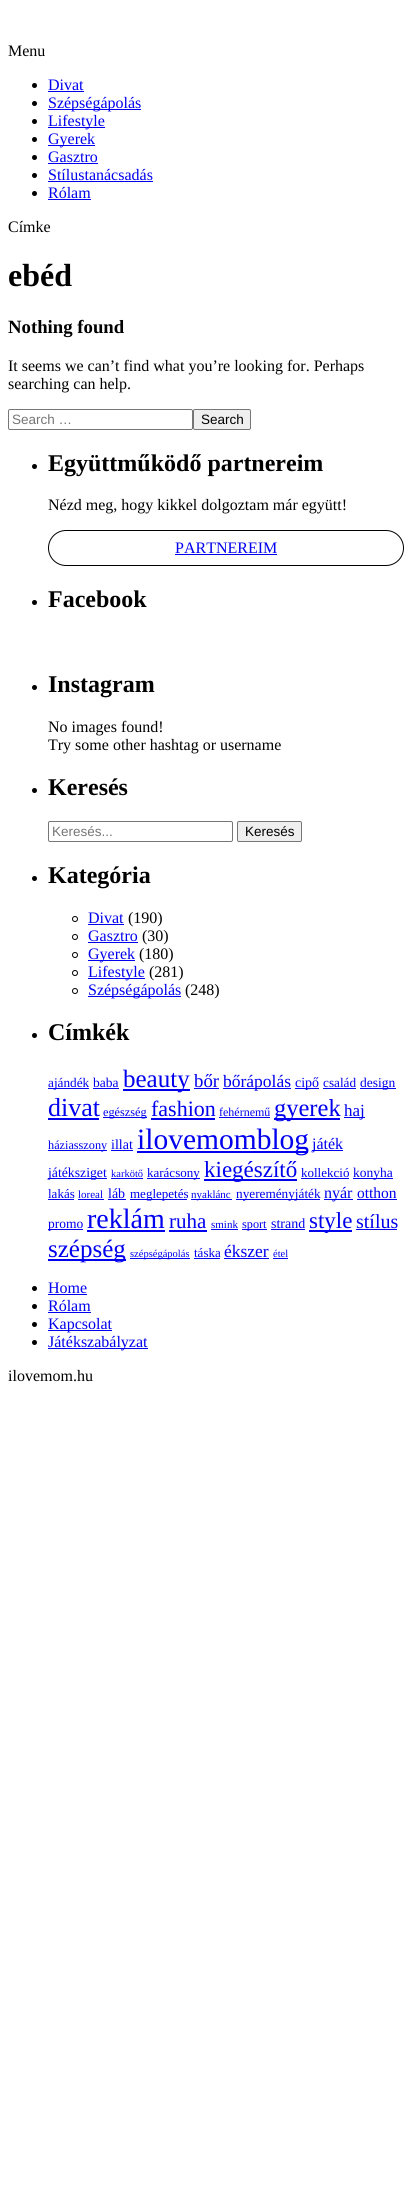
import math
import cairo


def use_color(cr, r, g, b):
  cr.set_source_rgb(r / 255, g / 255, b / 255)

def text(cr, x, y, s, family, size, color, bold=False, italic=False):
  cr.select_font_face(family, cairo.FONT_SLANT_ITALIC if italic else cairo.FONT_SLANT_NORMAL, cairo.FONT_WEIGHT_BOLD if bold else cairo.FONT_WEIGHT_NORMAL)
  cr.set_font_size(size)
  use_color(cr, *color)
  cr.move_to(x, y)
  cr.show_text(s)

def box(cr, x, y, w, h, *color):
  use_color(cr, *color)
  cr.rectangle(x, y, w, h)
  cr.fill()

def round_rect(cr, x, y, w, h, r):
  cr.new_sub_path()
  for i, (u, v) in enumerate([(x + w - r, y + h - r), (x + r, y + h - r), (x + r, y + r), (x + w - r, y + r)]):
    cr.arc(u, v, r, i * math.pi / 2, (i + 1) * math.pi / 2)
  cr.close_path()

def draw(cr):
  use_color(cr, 255, 255, 255)
  cr.paint()
  use_color(cr, 0, 0, 0)
  cr.arc(34.5, 85.5, 2.5, 0, 2 * math.pi)
  cr.fill()
  box(cr, 48, 91, 36, 1, 0, 0, 238)
  use_color(cr, 0, 0, 0)
  cr.arc(34.5, 103.5, 2.5, 0, 2 * math.pi)
  cr.fill()
  box(cr, 48, 109, 93, 1, 0, 0, 238)
  use_color(cr, 0, 0, 0)
  cr.arc(34.5, 121.5, 2.5, 0, 2 * math.pi)
  cr.fill()
  box(cr, 48, 127, 57, 1, 0, 0, 238)
  use_color(cr, 0, 0, 0)
  cr.arc(34.5, 139.5, 2.5, 0, 2 * math.pi)
  cr.fill()
  box(cr, 48, 145, 47, 1, 0, 0, 238)
  use_color(cr, 0, 0, 0)
  cr.arc(34.5, 157.5, 2.5, 0, 2 * math.pi)
  cr.fill()
  box(cr, 48, 163, 50, 1, 0, 0, 238)
  use_color(cr, 0, 0, 0)
  cr.arc(34.5, 175.5, 2.5, 0, 2 * math.pi)
  cr.fill()
  box(cr, 48, 181, 105, 1, 0, 0, 238)
  use_color(cr, 0, 0, 0)
  cr.arc(34.5, 193.5, 2.5, 0, 2 * math.pi)
  cr.fill()
  box(cr, 48, 199, 43, 1, 0, 0, 238)
  round_rect(cr, 8.5, 409.5, 184, 20, 1.5)
  use_color(cr, 118, 118, 118)
  cr.set_line_width(1)
  cr.stroke()
  use_color(cr, 239, 239, 239)
  round_rect(cr, 193.5, 409.5, 57, 20, 1.5)
  cr.fill_preserve()
  use_color(cr, 118, 118, 118)
  cr.stroke()
  use_color(cr, 0, 0, 0)
  cr.arc(34.5, 466.5, 2.5, 0, 2 * math.pi)
  cr.fill()
  round_rect(cr, 48.5, 530.5, 355, 35, 17.5)
  cr.stroke()
  box(cr, 175, 554, 102, 1, 0, 0, 238)
  use_color(cr, 0, 0, 0)
  cr.arc(34.5, 602.5, 2.5, 0, 2 * math.pi)
  cr.fill()
  cr.arc(34.5, 687.5, 2.5, 0, 2 * math.pi)
  cr.fill()
  cr.arc(34.5, 790.5, 2.5, 0, 2 * math.pi)
  cr.fill()
  round_rect(cr, 48.5, 821.5, 184, 20, 1.5)
  use_color(cr, 118, 118, 118)
  cr.stroke()
  use_color(cr, 239, 239, 239)
  round_rect(cr, 237.5, 821.5, 64, 20, 1.5)
  cr.fill_preserve()
  use_color(cr, 118, 118, 118)
  cr.stroke()
  use_color(cr, 0, 0, 0)
  cr.arc(34.5, 878.5, 2.5, 0, 2 * math.pi)
  cr.fill()
  cr.arc(75, 919, 2.5, 0, 2 * math.pi)
  cr.stroke()
  box(cr, 88, 924, 36, 1, 0, 0, 238)
  cr.arc(75, 937, 2.5, 0, 2 * math.pi)
  use_color(cr, 0, 0, 0)
  cr.stroke()
  box(cr, 88, 942, 50, 1, 0, 0, 238)
  cr.arc(75, 955, 2.5, 0, 2 * math.pi)
  use_color(cr, 0, 0, 0)
  cr.stroke()
  box(cr, 88, 960, 47, 1, 0, 0, 238)
  cr.arc(75, 973, 2.5, 0, 2 * math.pi)
  use_color(cr, 0, 0, 0)
  cr.stroke()
  box(cr, 88, 978, 57, 1, 0, 0, 238)
  cr.arc(75, 991, 2.5, 0, 2 * math.pi)
  use_color(cr, 0, 0, 0)
  cr.stroke()
  box(cr, 88, 996, 93, 1, 0, 0, 238)
  use_color(cr, 0, 0, 0)
  cr.arc(34.5, 1035.5, 2.5, 0, 2 * math.pi)
  cr.fill()
  box(cr, 48, 1088, 41, 1, 0, 0, 238)
  box(cr, 93, 1088, 26, 1, 0, 0, 238)
  box(cr, 123, 1089, 67, 2, 0, 0, 238)
  box(cr, 194, 1088, 25, 1, 0, 0, 238)
  box(cr, 223, 1088, 68, 1, 0, 0, 238)
  box(cr, 295, 1088, 24, 1, 0, 0, 238)
  box(cr, 323, 1088, 33, 1, 0, 0, 238)
  box(cr, 360, 1088, 36, 1, 0, 0, 238)
  box(cr, 48, 1118, 51, 2, 0, 0, 238)
  box(cr, 103, 1117, 44, 1, 0, 0, 238)
  box(cr, 151, 1118, 64, 2, 0, 0, 238)
  box(cr, 219, 1117, 51, 1, 0, 0, 238)
  box(cr, 274, 1118, 66, 2, 0, 0, 238)
  box(cr, 344, 1117, 21, 1, 0, 0, 238)
  box(cr, 48, 1150, 59, 1, 0, 0, 238)
  box(cr, 111, 1150, 22, 1, 0, 0, 238)
  box(cr, 137, 1151, 171, 2, 0, 0, 238)
  box(cr, 312, 1150, 31, 1, 0, 0, 238)
  box(cr, 48, 1178, 59, 1, 0, 0, 238)
  box(cr, 111, 1178, 32, 1, 0, 0, 238)
  box(cr, 147, 1178, 53, 1, 0, 0, 238)
  box(cr, 204, 1179, 93, 2, 0, 0, 238)
  box(cr, 301, 1178, 48, 1, 0, 0, 238)
  box(cr, 353, 1178, 40, 1, 0, 0, 238)
  box(cr, 48, 1199, 26, 1, 0, 0, 238)
  box(cr, 78, 1199, 26, 1, 0, 0, 238)
  box(cr, 108, 1199, 18, 1, 0, 0, 238)
  box(cr, 130, 1199, 57, 1, 0, 0, 238)
  box(cr, 191, 1199, 41, 1, 0, 0, 238)
  box(cr, 236, 1199, 84, 1, 0, 0, 238)
  box(cr, 324, 1199, 29, 1, 0, 0, 238)
  box(cr, 357, 1199, 40, 1, 0, 0, 238)
  box(cr, 48, 1229, 35, 1, 0, 0, 238)
  box(cr, 87, 1230, 78, 2, 0, 0, 238)
  box(cr, 169, 1230, 38, 2, 0, 0, 238)
  box(cr, 211, 1229, 27, 1, 0, 0, 238)
  box(cr, 242, 1229, 25, 1, 0, 0, 238)
  box(cr, 271, 1229, 34, 1, 0, 0, 238)
  box(cr, 309, 1230, 43, 2, 0, 0, 238)
  box(cr, 356, 1229, 41, 1, 0, 0, 238)
  box(cr, 48, 1259, 78, 2, 0, 0, 238)
  box(cr, 130, 1258, 60, 1, 0, 0, 238)
  box(cr, 194, 1258, 26, 1, 0, 0, 238)
  box(cr, 224, 1258, 45, 1, 0, 0, 238)
  box(cr, 273, 1258, 15, 1, 0, 0, 238)
  use_color(cr, 0, 0, 0)
  cr.arc(34.5, 1288.5, 2.5, 0, 2 * math.pi)
  cr.fill()
  box(cr, 48, 1294, 39, 1, 0, 0, 238)
  use_color(cr, 0, 0, 0)
  cr.arc(34.5, 1306.5, 2.5, 0, 2 * math.pi)
  cr.fill()
  box(cr, 48, 1312, 43, 1, 0, 0, 238)
  use_color(cr, 0, 0, 0)
  cr.arc(34.5, 1324.5, 2.5, 0, 2 * math.pi)
  cr.fill()
  box(cr, 48, 1330, 64, 1, 0, 0, 238)
  use_color(cr, 0, 0, 0)
  cr.arc(34.5, 1342.5, 2.5, 0, 2 * math.pi)
  cr.fill()
  box(cr, 48, 1348, 100, 1, 0, 0, 238)
  text(cr, 8, 56, "Menu", "Liberation Serif", 16, (0, 0, 0))
  text(cr, 48, 90, "Divat", "Liberation Serif", 16, (0, 0, 238))
  text(cr, 48, 108, "Szépségápolás", "Liberation Serif", 16, (0, 0, 238))
  text(cr, 48, 126, "Lifestyle", "Liberation Serif", 16, (0, 0, 238))
  text(cr, 48, 144, "Gyerek", "Liberation Serif", 16, (0, 0, 238))
  text(cr, 48, 162, "Gasztro", "Liberation Serif", 16, (0, 0, 238))
  text(cr, 48, 180, "Stílustanácsadás", "Liberation Serif", 16, (0, 0, 238))
  text(cr, 48, 198, "Rólam", "Liberation Serif", 16, (0, 0, 238))
  text(cr, 8, 232, "Címke", "Liberation Serif", 16, (0, 0, 0))
  text(cr, 8, 286, "ebéd", "Liberation Serif", 32, (0, 0, 0), bold=True)
  text(cr, 8, 333, "Nothing found", "Liberation Serif", 18.75, (0, 0, 0), bold=True)
  text(cr, 8, 371, "It seems we can’t find what you’re looking for. Perhaps", "Liberation Serif", 16, (0, 0, 0))
  text(cr, 8, 389, "searching can help.", "Liberation Serif", 16, (0, 0, 0))
  text(cr, 12, 424, "Search …", "Liberation Sans", 13.5, (117, 117, 117))
  text(cr, 201, 424, "Search", "Liberation Sans", 13.5, (0, 0, 0))
  text(cr, 48, 471, "Együttműködő partnereim", "Liberation Serif", 24, (0, 0, 0), bold=True)
  text(cr, 48, 510, "Nézd meg, hogy kikkel dolgoztam már együtt!", "Liberation Serif", 16, (0, 0, 0))
  text(cr, 175, 553, "PARTNEREIM", "Liberation Serif", 16, (0, 0, 238))
  text(cr, 48, 607, "Facebook", "Liberation Serif", 24, (0, 0, 0), bold=True)
  text(cr, 48, 692, "Instagram", "Liberation Serif", 24, (0, 0, 0), bold=True)
  text(cr, 48, 732, "No images found!", "Liberation Serif", 16, (0, 0, 0))
  text(cr, 48, 750, "Try some other hashtag or username", "Liberation Serif", 16, (0, 0, 0))
  text(cr, 48, 795, "Keresés", "Liberation Serif", 24, (0, 0, 0), bold=True)
  text(cr, 52, 836, "Keresés...", "Liberation Sans", 13.5, (117, 117, 117))
  text(cr, 245, 836, "Keresés", "Liberation Sans", 13.5, (0, 0, 0))
  text(cr, 48, 883, "Kategória", "Liberation Serif", 24, (0, 0, 0), bold=True)
  text(cr, 88, 923, "Divat", "Liberation Serif", 16, (0, 0, 238))
  text(cr, 128, 923, "(190)", "Liberation Serif", 16, (0, 0, 0))
  text(cr, 88, 941, "Gasztro", "Liberation Serif", 16, (0, 0, 238))
  text(cr, 142, 941, "(30)", "Liberation Serif", 16, (0, 0, 0))
  text(cr, 88, 959, "Gyerek", "Liberation Serif", 16, (0, 0, 238))
  text(cr, 139, 959, "(180)", "Liberation Serif", 16, (0, 0, 0))
  text(cr, 88, 977, "Lifestyle", "Liberation Serif", 16, (0, 0, 238))
  text(cr, 149, 977, "(281)", "Liberation Serif", 16, (0, 0, 0))
  text(cr, 88, 995, "Szépségápolás", "Liberation Serif", 16, (0, 0, 238))
  text(cr, 185, 995, "(248)", "Liberation Serif", 16, (0, 0, 0))
  text(cr, 48, 1040, "Címkék", "Liberation Serif", 24, (0, 0, 0), bold=True)
  text(cr, 48, 1087, "ajándék", "Liberation Serif", 13.25, (0, 0, 238))
  text(cr, 93, 1087, "baba", "Liberation Serif", 13.5, (0, 0, 238))
  text(cr, 123, 1087, "beauty", "Liberation Serif", 25, (0, 0, 238))
  text(cr, 194, 1087, "bőr", "Liberation Serif", 18.75, (0, 0, 238))
  text(cr, 223, 1087, "bőrápolás", "Liberation Serif", 17.5, (0, 0, 238))
  text(cr, 295, 1087, "cipő", "Liberation Serif", 14, (0, 0, 238))
  text(cr, 323, 1087, "család", "Liberation Serif", 13.25, (0, 0, 238))
  text(cr, 360, 1087, "design", "Liberation Serif", 13.5, (0, 0, 238))
  text(cr, 48, 1116, "divat", "Liberation Serif", 26, (0, 0, 238))
  text(cr, 103, 1116, "egészség", "Liberation Serif", 12.25, (0, 0, 238))
  text(cr, 151, 1116, "fashion", "Liberation Serif", 22, (0, 0, 238))
  text(cr, 219, 1116, "fehérnemű", "Liberation Serif", 12, (0, 0, 238))
  text(cr, 274, 1116, "gyerek", "Liberation Serif", 24.5, (0, 0, 238))
  text(cr, 344, 1116, "haj", "Liberation Serif", 17, (0, 0, 238))
  text(cr, 48, 1149, "háziasszony", "Liberation Serif", 12.25, (0, 0, 238))
  text(cr, 111, 1149, "illat", "Liberation Serif", 14, (0, 0, 238))
  text(cr, 137, 1149, "ilovemomblog", "Liberation Serif", 29.5, (0, 0, 238))
  text(cr, 312, 1149, "játék", "Liberation Serif", 16, (0, 0, 238))
  text(cr, 48, 1177, "játéksziget", "Liberation Serif", 13.75, (0, 0, 238))
  text(cr, 111, 1177, "karkötő", "Liberation Serif", 10.5, (0, 0, 238))
  text(cr, 147, 1177, "karácsony", "Liberation Serif", 13, (0, 0, 238))
  text(cr, 204, 1177, "kiegészítő", "Liberation Serif", 23, (0, 0, 238))
  text(cr, 301, 1177, "kollekció", "Liberation Serif", 13, (0, 0, 238))
  text(cr, 353, 1177, "konyha", "Liberation Serif", 13.5, (0, 0, 238))
  text(cr, 48, 1198, "lakás", "Liberation Serif", 13, (0, 0, 238))
  text(cr, 78, 1198, "loreal", "Liberation Serif", 11, (0, 0, 238))
  text(cr, 108, 1198, "láb", "Liberation Serif", 14, (0, 0, 238))
  text(cr, 130, 1198, "meglepetés", "Liberation Serif", 13, (0, 0, 238))
  text(cr, 191, 1198, "nyaklánc", "Liberation Serif", 11, (0, 0, 238))
  text(cr, 236, 1198, "nyereményjáték", "Liberation Serif", 13.25, (0, 0, 238))
  text(cr, 324, 1198, "nyár", "Liberation Serif", 16, (0, 0, 238))
  text(cr, 357, 1198, "otthon", "Liberation Serif", 15.5, (0, 0, 238))
  text(cr, 48, 1228, "promo", "Liberation Serif", 13.5, (0, 0, 238))
  text(cr, 87, 1228, "reklám", "Liberation Serif", 28, (0, 0, 238))
  text(cr, 169, 1228, "ruha", "Liberation Serif", 21, (0, 0, 238))
  text(cr, 211, 1228, "smink", "Liberation Serif", 11, (0, 0, 238))
  text(cr, 242, 1228, "sport", "Liberation Serif", 12.25, (0, 0, 238))
  text(cr, 271, 1228, "strand", "Liberation Serif", 14, (0, 0, 238))
  text(cr, 309, 1228, "style", "Liberation Serif", 23, (0, 0, 238))
  text(cr, 356, 1228, "stílus", "Liberation Serif", 20, (0, 0, 238))
  text(cr, 48, 1257, "szépség", "Liberation Serif", 25, (0, 0, 238))
  text(cr, 130, 1257, "szépségápolás", "Liberation Serif", 10.5, (0, 0, 238))
  text(cr, 194, 1257, "táska", "Liberation Serif", 13, (0, 0, 238))
  text(cr, 224, 1257, "ékszer", "Liberation Serif", 17.5, (0, 0, 238))
  text(cr, 273, 1257, "étel", "Liberation Serif", 10.5, (0, 0, 238))
  text(cr, 48, 1293, "Home", "Liberation Serif", 16, (0, 0, 238))
  text(cr, 48, 1311, "Rólam", "Liberation Serif", 16, (0, 0, 238))
  text(cr, 48, 1329, "Kapcsolat", "Liberation Serif", 16, (0, 0, 238))
  text(cr, 48, 1347, "Játékszabályzat", "Liberation Serif", 16, (0, 0, 238))
  text(cr, 8, 1381, "ilovemom.hu", "Liberation Serif", 16, (0, 0, 0))


surface = cairo.ImageSurface(cairo.FORMAT_RGB24, 412, 2196)
cr = cairo.Context(surface)
options = cairo.FontOptions()
options.set_hint_metrics(cairo.HINT_METRICS_OFF)
options.set_hint_style(cairo.HINT_STYLE_NONE)
cr.set_font_options(options)
cr.set_miter_limit(4)
draw(cr)
surface.write_to_png("out.png")
